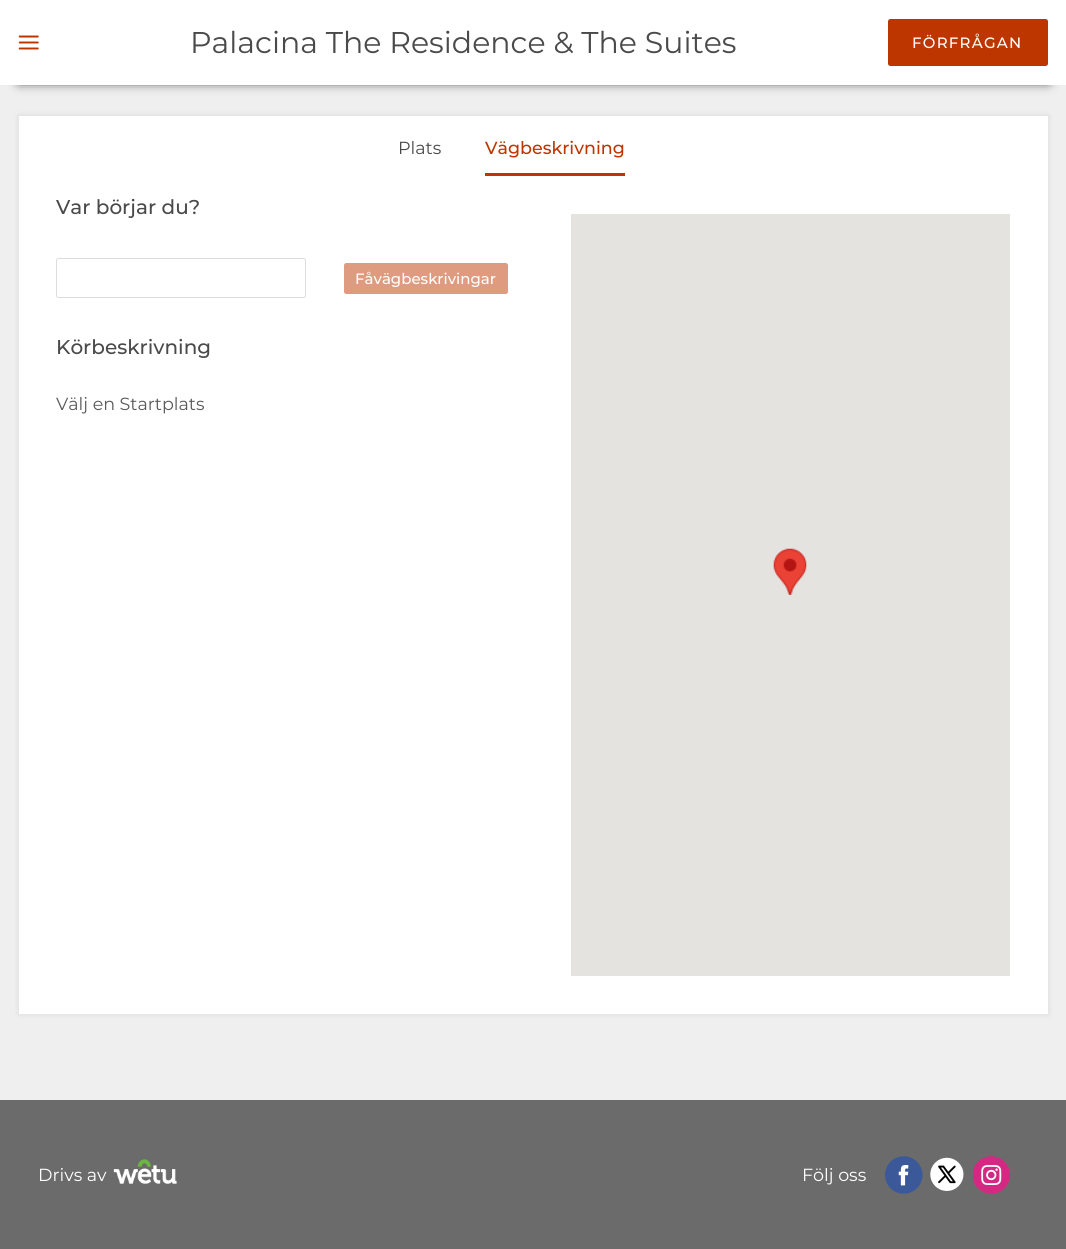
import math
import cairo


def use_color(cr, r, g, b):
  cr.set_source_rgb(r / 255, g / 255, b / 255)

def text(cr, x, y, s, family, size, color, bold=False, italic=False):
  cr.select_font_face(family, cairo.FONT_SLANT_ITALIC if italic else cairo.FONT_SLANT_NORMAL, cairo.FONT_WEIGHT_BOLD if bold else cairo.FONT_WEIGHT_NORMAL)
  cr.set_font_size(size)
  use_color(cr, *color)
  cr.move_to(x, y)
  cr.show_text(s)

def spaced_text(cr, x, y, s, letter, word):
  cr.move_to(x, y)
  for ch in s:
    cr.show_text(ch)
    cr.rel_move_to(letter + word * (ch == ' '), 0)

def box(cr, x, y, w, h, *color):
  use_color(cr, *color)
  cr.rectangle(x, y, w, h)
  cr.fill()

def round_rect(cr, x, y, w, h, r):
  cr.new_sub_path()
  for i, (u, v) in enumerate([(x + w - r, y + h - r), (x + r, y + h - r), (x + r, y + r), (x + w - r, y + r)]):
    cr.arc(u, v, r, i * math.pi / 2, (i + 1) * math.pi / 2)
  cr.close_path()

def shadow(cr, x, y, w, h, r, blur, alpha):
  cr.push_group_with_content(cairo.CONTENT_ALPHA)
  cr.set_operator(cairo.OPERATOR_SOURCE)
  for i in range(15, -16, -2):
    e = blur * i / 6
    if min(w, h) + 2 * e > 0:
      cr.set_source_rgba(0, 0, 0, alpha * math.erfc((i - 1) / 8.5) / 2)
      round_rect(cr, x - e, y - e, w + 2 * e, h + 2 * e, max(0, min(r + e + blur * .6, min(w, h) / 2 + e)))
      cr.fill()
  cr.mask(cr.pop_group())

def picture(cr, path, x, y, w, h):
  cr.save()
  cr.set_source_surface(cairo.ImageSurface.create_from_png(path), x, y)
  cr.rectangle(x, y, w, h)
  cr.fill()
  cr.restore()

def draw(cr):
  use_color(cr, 239, 239, 239)
  cr.paint()
  use_color(cr, 0, 0, 0)
  shadow(cr, 19, 34, 1029, 47, 0, 6, 1)
  box(cr, 0, 0, 1066, 85, 255, 255, 255)
  picture(cr, "img_01.png", 18, 35, 21, 15)
  use_color(cr, 189, 54, 0)
  round_rect(cr, 888, 19, 160, 47, 2.5)
  cr.fill()
  use_color(cr, 0, 0, 0)
  shadow(cr, 19, 116, 1029, 898, 0, 3, 0.1)
  box(cr, 19, 116, 1029, 898, 255, 255, 255)
  box(cr, 485, 173, 140, 3, 189, 54, 0)
  round_rect(cr, 56.5, 258.5, 249, 39, 2)
  use_color(cr, 221, 221, 221)
  cr.set_line_width(1)
  cr.stroke()
  use_color(cr, 222, 155, 127)
  round_rect(cr, 344.5, 263.5, 163, 30, 2)
  cr.fill_preserve()
  cr.stroke()
  box(cr, 571, 214, 439, 762, 229, 227, 223)
  picture(cr, "img_02.png", 773, 548, 34, 47)
  box(cr, 0, 1100, 1066, 149, 107, 107, 107)
  picture(cr, "img_03.png", 113, 1159, 64, 25)
  picture(cr, "img_04.png", 885, 1156, 38, 38)
  picture(cr, "img_05.png", 930, 1157, 34, 34)
  picture(cr, "img_06.png", 973, 1156, 37, 38)
  text(cr, 190, 53, "Palacina The Residence & The Suites", "Montserrat", 30, (74, 74, 74))
  cr.select_font_face("Montserrat Medium")
  cr.set_font_size(15)
  use_color(cr, 255, 255, 255)
  spaced_text(cr, 912, 48, "FÖRFRÅGAN", 1.25, 0)
  text(cr, 398, 154, "Plats", "Montserrat", 17.5, (74, 74, 74))
  text(cr, 485, 154, "Vägbeskrivning", "Montserrat Medium", 17.5, (189, 54, 0))
  text(cr, 56, 214, "Var börjar du?", "Montserrat Medium", 20, (74, 74, 74))
  text(cr, 355, 284, "Fåvägbeskrivingar", "Montserrat Medium", 15, (255, 255, 255))
  text(cr, 56, 354, "Körbeskrivning", "Montserrat Medium", 20, (74, 74, 74))
  text(cr, 56, 410, "Välj en Startplats", "Montserrat", 17.5, (90, 90, 90))
  text(cr, 38, 1181, "Drivs av", "Montserrat", 17.5, (255, 255, 255))
  text(cr, 802, 1181, "Följ oss", "Montserrat", 17.5, (255, 255, 255))


surface = cairo.ImageSurface(cairo.FORMAT_RGB24, 1066, 1249)
cr = cairo.Context(surface)
options = cairo.FontOptions()
options.set_hint_metrics(cairo.HINT_METRICS_OFF)
options.set_hint_style(cairo.HINT_STYLE_NONE)
cr.set_font_options(options)
cr.set_miter_limit(4)
draw(cr)
surface.write_to_png("out.png")
